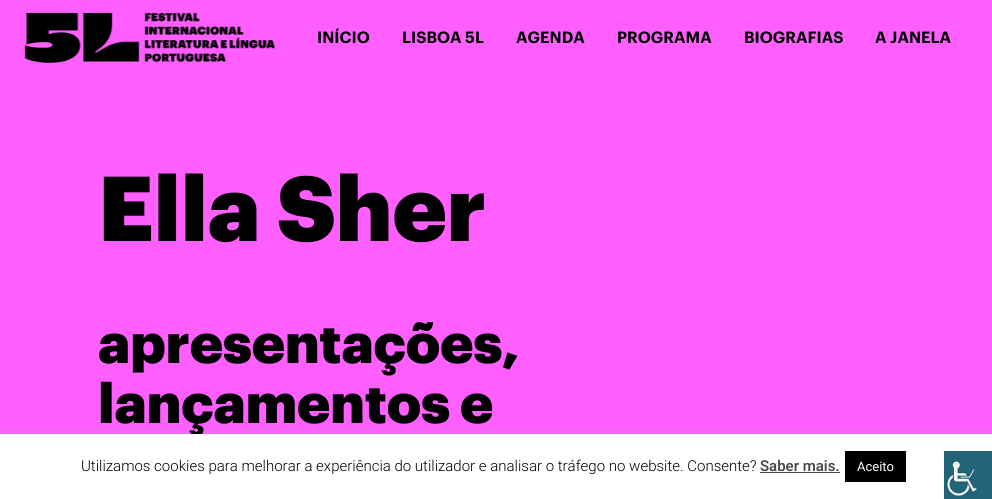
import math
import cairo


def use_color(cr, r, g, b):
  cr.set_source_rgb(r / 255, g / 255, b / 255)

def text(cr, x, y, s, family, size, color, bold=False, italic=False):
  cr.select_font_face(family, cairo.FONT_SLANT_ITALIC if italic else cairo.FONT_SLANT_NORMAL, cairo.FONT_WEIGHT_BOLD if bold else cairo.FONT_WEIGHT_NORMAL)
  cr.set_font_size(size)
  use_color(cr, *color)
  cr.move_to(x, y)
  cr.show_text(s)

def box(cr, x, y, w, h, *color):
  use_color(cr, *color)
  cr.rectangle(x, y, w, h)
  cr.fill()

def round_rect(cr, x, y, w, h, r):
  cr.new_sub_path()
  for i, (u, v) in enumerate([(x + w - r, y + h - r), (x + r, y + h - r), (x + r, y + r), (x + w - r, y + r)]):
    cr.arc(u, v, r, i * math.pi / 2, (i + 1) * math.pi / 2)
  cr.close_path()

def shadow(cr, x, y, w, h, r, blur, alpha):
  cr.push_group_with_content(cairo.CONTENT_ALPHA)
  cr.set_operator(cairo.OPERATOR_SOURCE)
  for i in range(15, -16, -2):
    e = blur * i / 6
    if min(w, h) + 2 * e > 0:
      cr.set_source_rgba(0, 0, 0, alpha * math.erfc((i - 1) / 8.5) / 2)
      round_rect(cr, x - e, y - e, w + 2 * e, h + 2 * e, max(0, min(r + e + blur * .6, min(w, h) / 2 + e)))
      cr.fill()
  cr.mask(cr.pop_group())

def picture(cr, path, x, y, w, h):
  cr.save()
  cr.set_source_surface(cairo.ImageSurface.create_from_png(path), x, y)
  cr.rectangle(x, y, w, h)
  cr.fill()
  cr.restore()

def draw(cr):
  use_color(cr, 255, 95, 255)
  cr.paint()
  picture(cr, "img_01.png", 24, 13, 251, 50)
  use_color(cr, 172, 171, 171)
  shadow(cr, 0, 433, 992, 65, 0, 5, 0.3)
  text(cr, 317, 43, "INÍCIO", "Graphik SemiBold", 16, (0, 0, 0))
  text(cr, 402, 43, "LISBOA 5L", "Graphik SemiBold", 16, (0, 0, 0))
  text(cr, 516, 43, "AGENDA", "Graphik SemiBold", 16, (0, 0, 0))
  text(cr, 617, 43, "PROGRAMA", "Graphik SemiBold", 16, (0, 0, 0))
  text(cr, 744, 43, "BIOGRAFIAS", "Graphik SemiBold", 16, (0, 0, 0))
  text(cr, 875, 43, "A JANELA", "Graphik SemiBold", 16, (0, 0, 0))
  text(cr, 98, 241, "Ella Sher", "Graphik Black", 90, (0, 0, 0))
  text(cr, 98, 363, "apresentações,", "Graphik Black", 55, (0, 0, 0))
  text(cr, 98, 423, "lançamentos e", "Graphik Black", 55, (0, 0, 0))
  box(cr, 0, 434, 992, 65, 255, 255, 255)
  text(cr, 81, 471, "Utilizamos cookies para melhorar a experiência do utilizador e analisar o tráfego no website. Consente?", "Roboto Light", 15, (0, 0, 0))
  text(cr, 760, 471, "Saber mais.", "Roboto Medium", 15, (68, 68, 68))
  box(cr, 760, 472, 80, 1, 68, 68, 68)
  box(cr, 845, 451, 61, 31, 0, 0, 0)
  text(cr, 857, 471, "Aceito", "Roboto", 13, (255, 255, 255))
  picture(cr, "img_02.png", 944, 451, 48, 48)


surface = cairo.ImageSurface(cairo.FORMAT_RGB24, 992, 499)
cr = cairo.Context(surface)
options = cairo.FontOptions()
options.set_hint_metrics(cairo.HINT_METRICS_OFF)
options.set_hint_style(cairo.HINT_STYLE_NONE)
cr.set_font_options(options)
cr.set_miter_limit(4)
draw(cr)
surface.write_to_png("out.png")
